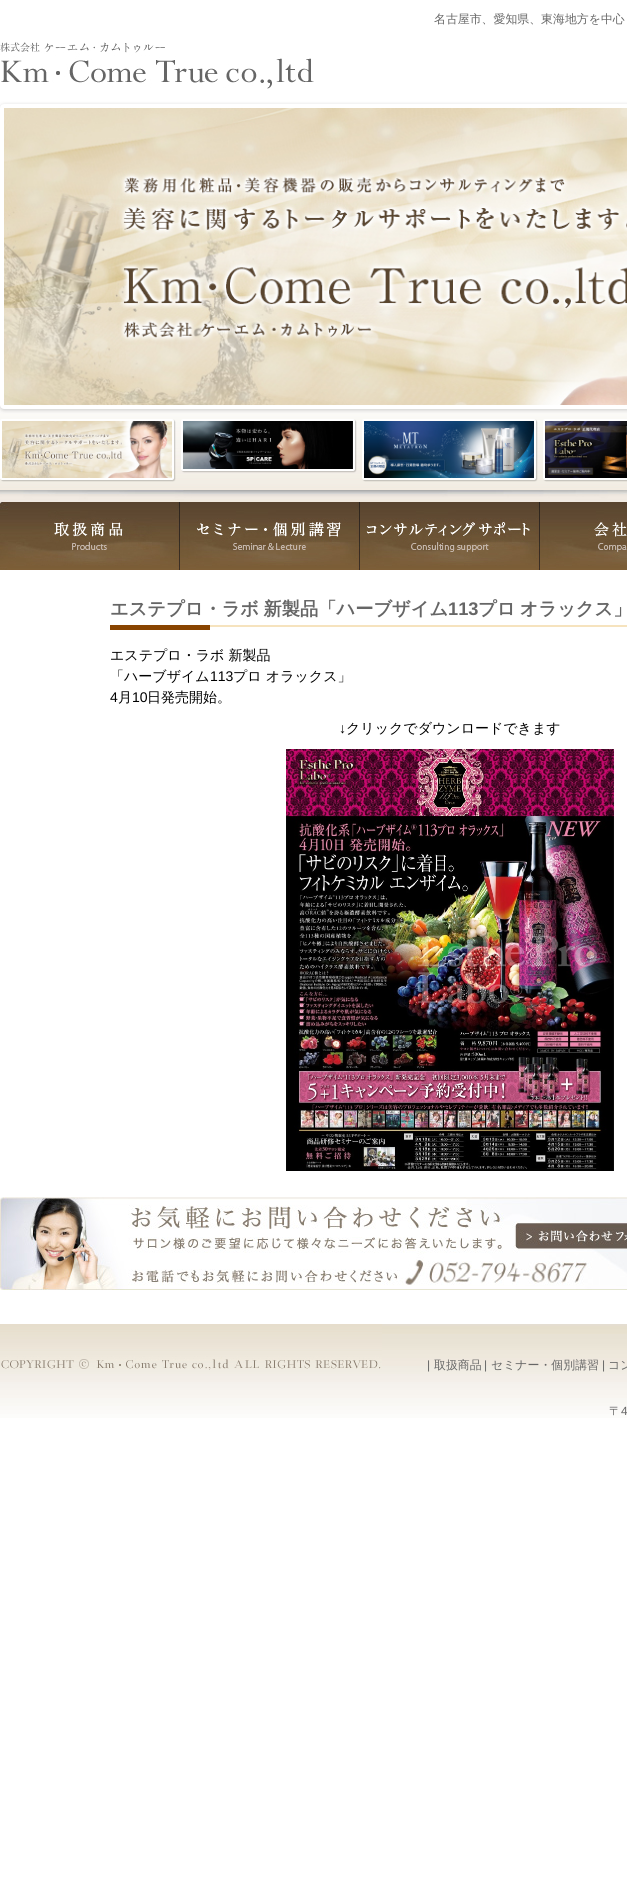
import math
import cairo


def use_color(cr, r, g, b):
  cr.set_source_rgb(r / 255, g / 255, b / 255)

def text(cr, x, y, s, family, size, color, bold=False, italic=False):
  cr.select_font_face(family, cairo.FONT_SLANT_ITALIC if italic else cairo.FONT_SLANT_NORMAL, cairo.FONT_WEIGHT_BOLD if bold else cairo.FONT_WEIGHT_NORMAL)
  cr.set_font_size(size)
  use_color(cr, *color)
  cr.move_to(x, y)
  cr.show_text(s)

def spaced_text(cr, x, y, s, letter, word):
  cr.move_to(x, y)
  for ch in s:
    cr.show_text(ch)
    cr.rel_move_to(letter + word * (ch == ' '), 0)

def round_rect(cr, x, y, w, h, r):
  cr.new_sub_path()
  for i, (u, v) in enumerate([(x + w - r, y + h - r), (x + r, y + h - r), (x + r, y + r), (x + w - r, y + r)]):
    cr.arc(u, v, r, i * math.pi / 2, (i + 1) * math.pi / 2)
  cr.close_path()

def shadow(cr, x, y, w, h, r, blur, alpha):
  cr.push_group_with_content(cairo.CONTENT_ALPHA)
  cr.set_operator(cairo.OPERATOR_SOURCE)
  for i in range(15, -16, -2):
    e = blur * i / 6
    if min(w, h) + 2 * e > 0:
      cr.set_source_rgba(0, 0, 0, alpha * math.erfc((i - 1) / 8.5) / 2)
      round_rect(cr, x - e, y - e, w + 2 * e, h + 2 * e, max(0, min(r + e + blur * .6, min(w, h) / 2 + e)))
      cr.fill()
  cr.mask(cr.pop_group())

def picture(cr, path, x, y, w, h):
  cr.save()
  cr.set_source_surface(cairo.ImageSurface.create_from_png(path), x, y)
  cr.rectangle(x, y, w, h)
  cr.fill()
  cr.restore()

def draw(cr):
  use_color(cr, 255, 255, 255)
  cr.paint()
  picture(cr, "img_01.png", 0, 405, 627, 85)
  picture(cr, "img_02.png", 0, 42, 314, 47)
  use_color(cr, 0, 0, 0)
  shadow(cr, 0, 105, 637, 305, 4, 2, 0.2)
  round_rect(cr, 2, 106, 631, 301, 2)
  use_color(cr, 255, 255, 255)
  cr.set_line_width(4)
  cr.stroke()
  picture(cr, "img_03.png", 4, 108, 623, 297)
  use_color(cr, 0, 0, 0)
  shadow(cr, 1, 420, 174, 61, 2, 0.5, 0.2)
  round_rect(cr, 1, 420, 172, 59, 1)
  use_color(cr, 255, 255, 255)
  cr.set_line_width(2)
  cr.stroke()
  picture(cr, "img_04.png", 2, 421, 170, 57)
  use_color(cr, 0, 0, 0)
  shadow(cr, 182, 420, 174, 52, 2, 0.5, 0.2)
  round_rect(cr, 182, 420, 172, 50, 1)
  use_color(cr, 255, 255, 255)
  cr.stroke()
  picture(cr, "img_05.png", 183, 421, 170, 48)
  use_color(cr, 0, 0, 0)
  shadow(cr, 363, 420, 174, 61, 2, 0.5, 0.2)
  round_rect(cr, 363, 420, 172, 59, 1)
  use_color(cr, 255, 255, 255)
  cr.stroke()
  picture(cr, "img_06.png", 364, 421, 170, 57)
  use_color(cr, 0, 0, 0)
  shadow(cr, 544, 420, 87, 61, 2, 0.5, 0.2)
  round_rect(cr, 544, 420, 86, 59, 1)
  use_color(cr, 255, 255, 255)
  cr.stroke()
  picture(cr, "img_07.png", 545, 421, 82, 57)
  picture(cr, "img_08.png", 0, 490, 627, 12)
  picture(cr, "img_09.png", 0, 502, 180, 68)
  picture(cr, "img_10.png", 180, 502, 180, 68)
  picture(cr, "img_11.png", 360, 502, 180, 68)
  picture(cr, "img_12.png", 540, 502, 87, 68)
  picture(cr, "img_13.png", 110, 625, 517, 5)
  picture(cr, "img_14.png", 286, 749, 328, 422)
  picture(cr, "img_15.png", 0, 1197, 627, 93)
  picture(cr, "img_16.png", 0, 1324, 627, 94)
  picture(cr, "img_17.png", 0, 1324, 382, 46)
  text(cr, 434, 23, "名古屋市、愛知県、東海地方を中心", "WenQuanYi Zen Hei Medium", 11.9, (102, 102, 102))
  cr.select_font_face("WenQuanYi Zen Hei", cairo.FONT_SLANT_NORMAL, cairo.FONT_WEIGHT_BOLD)
  cr.set_font_size(18.25)
  spaced_text(cr, 110, 615, "エステプロ・ラボ 新製品「ハーブザイム", 0, -1)
  text(cr, 448, 615, "113", "Liberation Sans", 18.25, (102, 102, 102), bold=True)
  cr.select_font_face("WenQuanYi Zen Hei", cairo.FONT_SLANT_NORMAL, cairo.FONT_WEIGHT_BOLD)
  spaced_text(cr, 478, 615, "プロ オラックス」", 0, -1)
  text(cr, 110, 660, "エステプロ・ラボ 新製品", "WenQuanYi Zen Hei Medium", 14, (0, 0, 0))
  text(cr, 110, 681, "「ハーブザイム", "WenQuanYi Zen Hei Medium", 14, (0, 0, 0))
  text(cr, 210, 681, "113", "Liberation Sans", 14, (0, 0, 0))
  text(cr, 233, 681, "プロ オラックス」", "WenQuanYi Zen Hei Medium", 14, (0, 0, 0))
  text(cr, 110, 702, "4", "Liberation Sans", 14, (0, 0, 0))
  text(cr, 118, 702, "月", "WenQuanYi Zen Hei Medium", 14, (0, 0, 0))
  text(cr, 132, 702, "10", "Liberation Sans", 14, (0, 0, 0))
  text(cr, 147, 702, "日発売開始。", "WenQuanYi Zen Hei Medium", 14, (0, 0, 0))
  text(cr, 339, 733, "↓", "Liberation Sans", 14, (0, 0, 0))
  text(cr, 346, 733, "クリックでダウンロードできます", "WenQuanYi Zen Hei Medium", 14, (0, 0, 0))
  text(cr, 427, 1369, "|", "Liberation Sans", 11.9, (102, 102, 102))
  text(cr, 434, 1369, "取扱商品", "WenQuanYi Zen Hei Medium", 11.9, (102, 102, 102))
  text(cr, 484, 1369, "|", "Liberation Sans", 11.9, (102, 102, 102))
  text(cr, 491, 1369, "セミナー・個別講習", "WenQuanYi Zen Hei Medium", 11.9, (102, 102, 102))
  text(cr, 602, 1369, "|", "Liberation Sans", 11.9, (102, 102, 102))
  text(cr, 608, 1369, "コン", "WenQuanYi Zen Hei Medium", 11.9, (102, 102, 102))
  text(cr, 609, 1415, "〒", "WenQuanYi Zen Hei Medium", 11.9, (102, 102, 102))
  text(cr, 621, 1415, "4", "Liberation Sans", 11.9, (102, 102, 102))


surface = cairo.ImageSurface(cairo.FORMAT_RGB24, 627, 1891)
cr = cairo.Context(surface)
options = cairo.FontOptions()
options.set_hint_metrics(cairo.HINT_METRICS_OFF)
options.set_hint_style(cairo.HINT_STYLE_NONE)
cr.set_font_options(options)
cr.set_miter_limit(4)
draw(cr)
surface.write_to_png("out.png")
